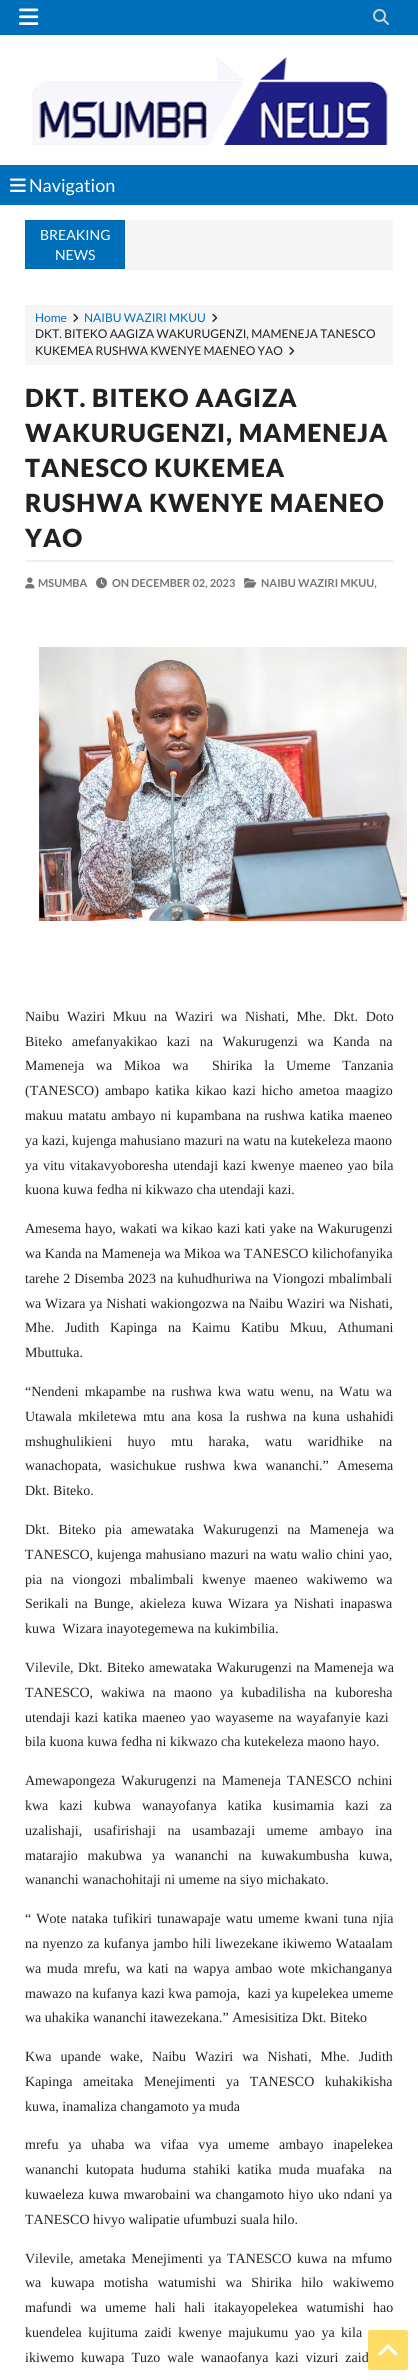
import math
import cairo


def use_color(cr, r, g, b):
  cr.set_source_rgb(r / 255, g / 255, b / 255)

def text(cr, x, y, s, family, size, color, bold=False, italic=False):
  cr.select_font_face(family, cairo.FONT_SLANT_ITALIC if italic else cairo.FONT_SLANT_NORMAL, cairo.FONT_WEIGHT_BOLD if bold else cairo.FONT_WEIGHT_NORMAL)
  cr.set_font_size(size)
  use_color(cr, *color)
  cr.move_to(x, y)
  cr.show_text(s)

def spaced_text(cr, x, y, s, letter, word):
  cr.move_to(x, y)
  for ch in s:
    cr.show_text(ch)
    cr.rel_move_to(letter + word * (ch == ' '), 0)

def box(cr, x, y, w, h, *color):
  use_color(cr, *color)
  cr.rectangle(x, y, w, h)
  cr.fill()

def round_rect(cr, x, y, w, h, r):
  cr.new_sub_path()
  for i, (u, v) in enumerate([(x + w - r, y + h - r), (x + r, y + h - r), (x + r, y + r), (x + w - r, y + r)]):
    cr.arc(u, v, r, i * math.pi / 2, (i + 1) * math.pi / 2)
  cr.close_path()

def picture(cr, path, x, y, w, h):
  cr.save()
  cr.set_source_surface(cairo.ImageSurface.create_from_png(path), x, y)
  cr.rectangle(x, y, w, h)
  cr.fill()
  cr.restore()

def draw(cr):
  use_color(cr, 255, 255, 255)
  cr.paint()
  box(cr, 0, 0, 418, 35, 0, 111, 185)
  picture(cr, "img_01.png", 19, 8, 20, 17)
  picture(cr, "img_02.png", 373, 9, 16, 16)
  picture(cr, "img_03.png", 31, 57, 357, 88)
  box(cr, 0, 165, 418, 40, 0, 111, 185)
  picture(cr, "img_04.png", 10, 178, 16, 14)
  cr.rectangle(25.5, 220.5, 99, 48)
  cr.fill_preserve()
  use_color(cr, 0, 100, 167)
  cr.set_line_width(1)
  cr.stroke()
  box(cr, 125, 220, 268, 50, 245, 245, 245)
  box(cr, 25, 305, 368, 60, 245, 245, 245)
  picture(cr, "img_05.png", 73, 313, 6, 9)
  picture(cr, "img_05.png", 212, 313, 6, 9)
  picture(cr, "img_05.png", 289, 346, 6, 9)
  box(cr, 25, 560, 368, 2, 238, 238, 238)
  picture(cr, "img_06.png", 25, 577, 10, 12)
  picture(cr, "img_07.png", 96, 577, 11, 12)
  picture(cr, "img_08.png", 244, 578, 13, 10)
  picture(cr, "img_09.png", 39, 647, 368, 274)
  text(cr, 29, 192, "Navigation", "Lato", 18, (255, 255, 255))
  text(cr, 40, 240, "BREAKING", "Lato", 14, (255, 255, 255))
  text(cr, 55, 260, "NEWS", "Lato", 14, (255, 255, 255))
  text(cr, 35, 322, "Home", "Lato", 12, (0, 111, 185))
  text(cr, 84, 322, "NAIBU WAZIRI MKUU", "Lato", 12, (0, 111, 185))
  text(cr, 35, 338, "DKT. BITEKO AAGIZA WAKURUGENZI, MAMENEJA TANESCO", "Lato", 12, (34, 34, 34))
  text(cr, 35, 355, "KUKEMEA RUSHWA KWENYE MAENEO YAO", "Lato", 12, (34, 34, 34))
  cr.select_font_face("Lato Black")
  cr.set_font_size(25)
  spaced_text(cr, 25, 407, "DKT. BITEKO AAGIZA", 1, 0)
  spaced_text(cr, 25, 442, "WAKURUGENZI, MAMENEJA", 1, 0)
  spaced_text(cr, 25, 477, "TANESCO KUKEMEA", 1, 0)
  spaced_text(cr, 25, 512, "RUSHWA KWENYE MAENEO", 1, 0)
  spaced_text(cr, 25, 547, "YAO", 1, 0)
  text(cr, 38, 587, "MSUMBA", "Lato", 11, (117, 117, 117), bold=True)
  text(cr, 112, 587, "ON DECEMBER 02, 2023", "Lato", 11, (117, 117, 117), bold=True)
  text(cr, 261, 587, "NAIBU WAZIRI MKUU,", "Lato", 11, (117, 117, 117), bold=True)
  cr.select_font_face("Liberation Serif")
  cr.set_font_size(14)
  use_color(cr, 34, 34, 34)
  spaced_text(cr, 25, 1021, "Naibu Waziri Mkuu na Waziri wa Nishati, Mhe. Dkt. Doto", 0, 4.25)
  spaced_text(cr, 25, 1046, "Biteko amefanyakikao kazi na Wakurugenzi wa Kanda na", 0, 6)
  spaced_text(cr, 25, 1070, "Mameneja wa Mikoa wa  Shirika la Umeme Tanzania", 0, 8.25)
  spaced_text(cr, 25, 1095, "(TANESCO) ambapo katika kikao kazi hicho ametoa maagizo", 0, 2.5)
  spaced_text(cr, 25, 1120, "makuu matatu ambayo ni kupambana na rushwa katika maeneo", 0, 1.5)
  text(cr, 25, 1145, "ya kazi, kujenga mahusiano mazuri na watu na kutekeleza maono", "Liberation Serif", 14, (34, 34, 34))
  spaced_text(cr, 25, 1170, "ya vitu vitakavyoboresha utendaji kazi kwenye maeneo yao bila", 0, 1.25)
  text(cr, 25, 1194, "kuona kuwa fedha ni kikwazo cha utendaji kazi.", "Liberation Serif", 14, (34, 34, 34))
  spaced_text(cr, 25, 1233, "Amesema hayo, wakati wa kikao kazi kati yake na Wakurugenzi", 0, 0.6)
  text(cr, 25, 1258, "wa Kanda na Mameneja wa Mikoa wa TANESCO kilichofanyika", "Liberation Serif", 14, (34, 34, 34))
  spaced_text(cr, 25, 1283, "tarehe 2 Disemba 2023 na kuhudhuriwa na Viongozi mbalimbali", 0, 0.5)
  spaced_text(cr, 25, 1308, "wa Wizara ya Nishati wakiongozwa na Naibu Waziri wa Nishati,", 0, 0.25)
  spaced_text(cr, 25, 1332, "Mhe. Judith Kapinga na Kaimu Katibu Mkuu, Athumani", 0, 7.25)
  text(cr, 25, 1357, "Mbuttuka.", "Liberation Serif", 14, (34, 34, 34))
  spaced_text(cr, 25, 1396, "“Nendeni mkapambe na rushwa kwa watu wenu, na Watu wa", 0, 2.5)
  spaced_text(cr, 25, 1421, "Utawala mkiletewa mtu ana kosa la rushwa na kuna ushahidi", 0, 3)
  spaced_text(cr, 25, 1446, "mshughulikieni huyo mtu haraka, watu waridhike na", 0, 12)
  spaced_text(cr, 25, 1470, "wanachopata, wasichukue rushwa kwa wananchi.” Amesema", 0, 5)
  text(cr, 25, 1495, "Dkt. Biteko.", "Liberation Serif", 14, (34, 34, 34))
  spaced_text(cr, 25, 1534, "Dkt. Biteko pia amewataka Wakurugenzi na Mameneja wa", 0, 5.5)
  spaced_text(cr, 25, 1559, "TANESCO, kujenga mahusiano mazuri na watu walio chini yao,", 0, 0.5)
  spaced_text(cr, 25, 1584, "pia na viongozi mbalimbali kwenye maeneo wakiwemo wa", 0, 5)
  spaced_text(cr, 25, 1608, "Serikali na Bunge, akieleza kuwa Wizara ya Nishati inapaswa", 0, 2.5)
  text(cr, 25, 1633, "kuwa  Wizara inayotegemewa na kukimbilia.", "Liberation Serif", 14, (34, 34, 34))
  spaced_text(cr, 25, 1672, "Vilevile, Dkt. Biteko amewataka Wakurugenzi na Mameneja wa", 0, 1)
  spaced_text(cr, 25, 1697, "TANESCO, wakiwa na maono ya kubadilisha na kuboresha", 0, 4.5)
  spaced_text(cr, 25, 1722, "utendaji kazi katika maeneo yao wayaseme na wayafanyie kazi", 0, 1.25)
  text(cr, 25, 1746, "bila kuona kuwa fedha ni kikwazo cha kutekeleza maono hayo.", "Liberation Serif", 14, (34, 34, 34))
  spaced_text(cr, 25, 1785, "Amewapongeza Wakurugenzi na Mameneja TANESCO nchini", 0, 2.5)
  spaced_text(cr, 25, 1810, "kwa kazi kubwa wanayofanya katika kusimamia kazi za", 0, 7.5)
  spaced_text(cr, 25, 1835, "uzalishaji, usafirishaji na usambazaji umeme ambayo ina", 0, 8)
  spaced_text(cr, 25, 1860, "matarajio makubwa ya wananchi na kuwakumbusha kuwa,", 0, 6.25)
  text(cr, 25, 1884, "wananchi wanachohitaji ni umeme na siyo michakato.", "Liberation Serif", 14, (34, 34, 34))
  spaced_text(cr, 25, 1923, "“ Wote nataka tufikiri tunawapaje watu umeme kwani tuna njia", 0, 1.5)
  spaced_text(cr, 25, 1948, "na nyenzo za kufanya jambo hili liwezekane ikiwemo Wataalam", 0, 0.75)
  spaced_text(cr, 25, 1973, "wa muda mrefu, wa kati na wapya ambao wote mkichanganya", 0, 2)
  spaced_text(cr, 25, 1998, "mawazo na kufanya kazi kwa pamoja,  kazi ya kupelekea umeme", 0, 0.25)
  text(cr, 25, 2022, "wa uhakika wananchi itawezekana.” Amesisitiza Dkt. Biteko", "Liberation Serif", 14, (34, 34, 34))
  spaced_text(cr, 25, 2061, "Kwa upande wake, Naibu Waziri wa Nishati, Mhe. Judith", 0, 5.5)
  spaced_text(cr, 25, 2086, "Kapinga ameitaka Menejimenti ya TANESCO kuhakikisha", 0, 7)
  text(cr, 25, 2111, "kuwa, inamaliza changamoto ya muda", "Liberation Serif", 14, (34, 34, 34))
  spaced_text(cr, 25, 2149, "mrefu ya uhaba wa vifaa vya umeme ambayo inapelekea", 0, 6.25)
  spaced_text(cr, 25, 2174, "wananchi kutopata huduma stahiki katika muda muafaka  na", 0, 3.5)
  spaced_text(cr, 25, 2199, "kuwaeleza kuwa mwarobaini wa changamoto hiyo uko ndani ya", 0, 1)
  text(cr, 25, 2224, "TANESCO hivyo walipatie ufumbuzi suala hilo.", "Liberation Serif", 14, (34, 34, 34))
  spaced_text(cr, 25, 2263, "Vilevile, ametaka Menejimenti ya TANESCO kuwa na mfumo", 0, 2)
  spaced_text(cr, 25, 2287, "wa kuwapa motisha watumishi wa Shirika hilo wakiwemo", 0, 6)
  spaced_text(cr, 25, 2312, "mafundi wa umeme hali hali itakayopelekea watumishi hao", 0, 5)
  spaced_text(cr, 25, 2337, "kuendelea kujituma zaidi kwenye majukumu yao ya kila", 0, 3)
  spaced_text(cr, 25, 2362, "ikiwemo kuwapa Tuzo wale wanaofanya kazi vizuri zaid", 0, 3.5)
  cr.set_source_rgba(1, 0.804, 0.141, 0.7)
  round_rect(cr, 368, 2330, 40, 40, 2)
  cr.fill()
  picture(cr, "img_10.png", 378, 2344, 20, 12)


surface = cairo.ImageSurface(cairo.FORMAT_RGB24, 418, 2380)
cr = cairo.Context(surface)
options = cairo.FontOptions()
options.set_hint_metrics(cairo.HINT_METRICS_OFF)
options.set_hint_style(cairo.HINT_STYLE_NONE)
cr.set_font_options(options)
cr.set_miter_limit(4)
draw(cr)
surface.write_to_png("out.png")
